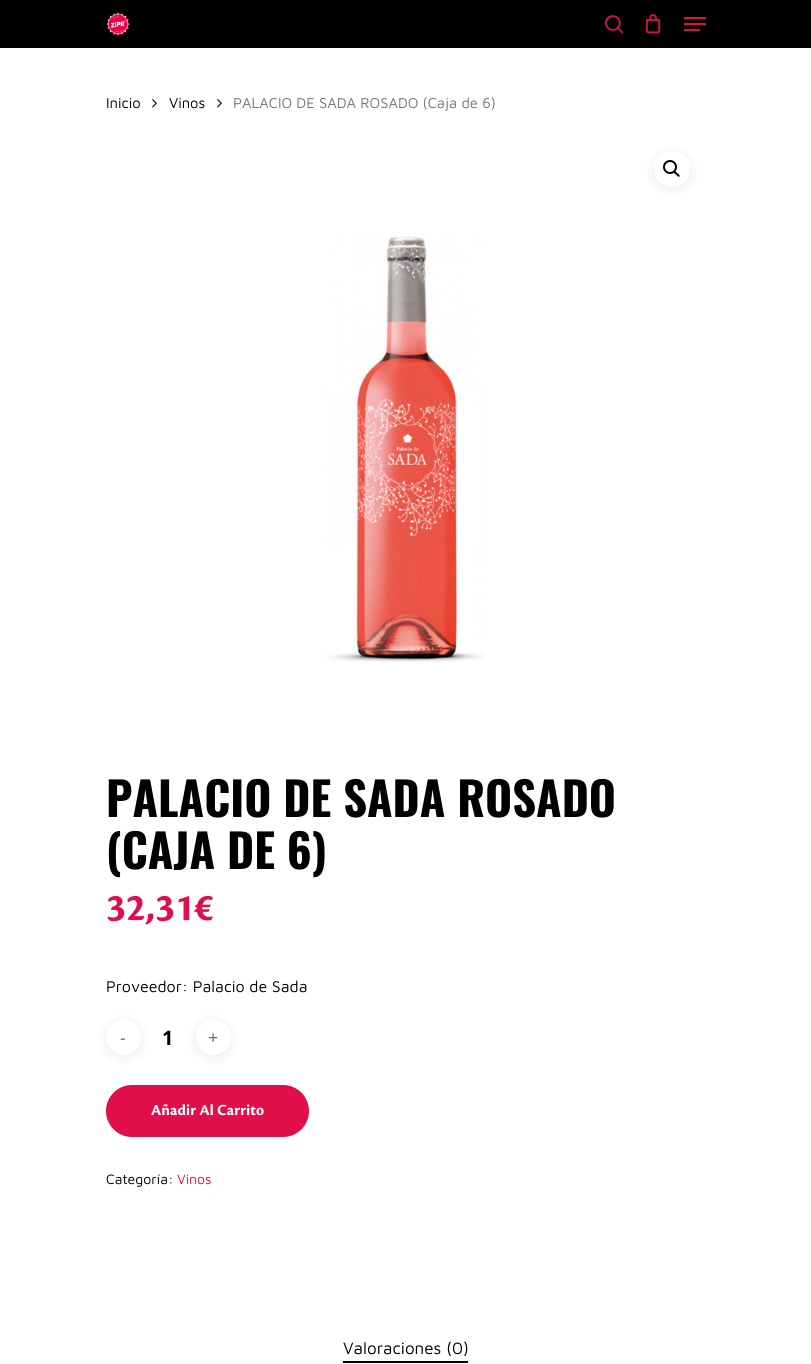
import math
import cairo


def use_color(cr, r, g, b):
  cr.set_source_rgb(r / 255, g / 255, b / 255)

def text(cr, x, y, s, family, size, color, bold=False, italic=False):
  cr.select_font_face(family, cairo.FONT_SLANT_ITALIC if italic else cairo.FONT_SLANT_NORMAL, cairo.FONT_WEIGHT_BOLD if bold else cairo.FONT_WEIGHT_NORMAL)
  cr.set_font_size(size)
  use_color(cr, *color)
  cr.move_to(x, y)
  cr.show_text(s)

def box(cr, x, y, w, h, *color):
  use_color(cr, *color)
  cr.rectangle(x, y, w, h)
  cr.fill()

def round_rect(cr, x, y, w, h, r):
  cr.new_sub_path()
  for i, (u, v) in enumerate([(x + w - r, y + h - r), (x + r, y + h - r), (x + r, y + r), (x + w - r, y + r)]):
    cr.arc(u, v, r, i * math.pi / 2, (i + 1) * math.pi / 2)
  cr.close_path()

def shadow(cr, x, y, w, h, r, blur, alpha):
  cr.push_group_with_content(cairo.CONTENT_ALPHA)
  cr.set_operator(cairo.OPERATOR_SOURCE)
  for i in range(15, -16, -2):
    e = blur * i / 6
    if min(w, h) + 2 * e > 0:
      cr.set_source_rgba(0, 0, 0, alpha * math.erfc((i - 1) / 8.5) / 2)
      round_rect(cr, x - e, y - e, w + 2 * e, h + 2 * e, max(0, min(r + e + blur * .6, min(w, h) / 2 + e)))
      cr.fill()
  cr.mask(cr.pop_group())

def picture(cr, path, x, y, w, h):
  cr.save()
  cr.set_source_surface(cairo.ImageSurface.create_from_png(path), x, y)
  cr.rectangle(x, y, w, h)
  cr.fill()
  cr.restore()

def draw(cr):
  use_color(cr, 255, 255, 255)
  cr.paint()
  box(cr, 0, 0, 811, 48, 0, 0, 0)
  picture(cr, "img_01.png", 106, 12, 24, 24)
  picture(cr, "img_02.png", 605, 15, 18, 19)
  picture(cr, "img_03.png", 646, 14, 15, 20)
  box(cr, 684, 17, 22, 2, 225, 14, 73)
  box(cr, 684, 29, 16, 2, 225, 14, 73)
  box(cr, 684, 23, 22, 2, 225, 14, 73)
  picture(cr, "img_04.png", 152, 99, 5, 9)
  picture(cr, "img_04.png", 217, 99, 5, 9)
  use_color(cr, 0, 0, 0)
  shadow(cr, 654, 153, 36, 36, 18, 6, 0.08)
  use_color(cr, 255, 255, 255)
  cr.arc(672, 169, 18, 0, 2 * math.pi)
  cr.fill()
  cr.arc(670, 167, 6, 0, 2 * math.pi)
  use_color(cr, 0, 0, 0)
  cr.stroke()
  cr.new_path()
  cr.move_to(673.5, 171)
  cr.curve_to(675, 169.5, 676.5, 172.5, 677, 173)
  cr.curve_to(678, 173.5, 680.5, 175.5, 679.5, 176.5)
  cr.curve_to(678, 177.5, 676.5, 175, 676, 174.5)
  cr.curve_to(675, 174, 672.5, 172, 673.5, 171)
  cr.close_path()
  cr.fill()
  picture(cr, "img_05.png", 326, 236, 160, 426)
  picture(cr, "img_06.png", 107, 895, 83, 30)
  picture(cr, "img_07.png", 194, 895, 19, 26)
  use_color(cr, 0, 0, 0)
  shadow(cr, 106, 1022, 35, 35, 17.5, 6, 0.08)
  use_color(cr, 255, 255, 255)
  cr.arc(123.5, 1037.5, 17.5, 0, 2 * math.pi)
  cr.fill()
  use_color(cr, 0, 0, 0)
  shadow(cr, 196, 1022, 35, 35, 17.5, 6, 0.08)
  use_color(cr, 255, 255, 255)
  cr.arc(213.5, 1037.5, 17.5, 0, 2 * math.pi)
  cr.fill()
  use_color(cr, 225, 14, 73)
  round_rect(cr, 106, 1085, 203, 52, 26)
  cr.fill()
  picture(cr, "img_08.png", 151, 1104, 113, 12)
  box(cr, 343, 1361, 125, 2, 0, 0, 0)
  text(cr, 106, 108, "Inicio", "Maven Pro", 14.75, (0, 0, 0))
  text(cr, 169, 108, "Vinos", "Maven Pro", 14.75, (0, 0, 0))
  text(cr, 233, 108, "PALACIO DE SADA ROSADO (Caja de 6)", "Maven Pro", 14.75, (115, 115, 115))
  text(cr, 106, 817, "PALACIO DE SADA ROSADO", "Oswald", 46.4, (0, 0, 0), bold=True)
  text(cr, 106, 869, "(CAJA DE 6)", "Oswald", 46.4, (0, 0, 0), bold=True)
  text(cr, 106, 992, "Proveedor: Palacio de Sada", "Maven Pro", 16, (0, 0, 0))
  text(cr, 120, 1044, "-", "Open Sans", 18, (102, 102, 102))
  text(cr, 162, 1045, "1", "Open Sans", 20, (0, 0, 0), bold=True)
  text(cr, 208, 1044, "+", "Open Sans", 18, (102, 102, 102))
  text(cr, 106, 1184, "Categoría:", "Maven Pro", 14, (0, 0, 0))
  text(cr, 177, 1184, "Vinos", "Maven Pro", 14, (225, 14, 73))
  text(cr, 343, 1354, "Valoraciones (0)", "Maven Pro", 17, (0, 0, 0))


surface = cairo.ImageSurface(cairo.FORMAT_RGB24, 811, 1364)
cr = cairo.Context(surface)
options = cairo.FontOptions()
options.set_hint_metrics(cairo.HINT_METRICS_OFF)
options.set_hint_style(cairo.HINT_STYLE_NONE)
cr.set_font_options(options)
cr.set_miter_limit(4)
draw(cr)
surface.write_to_png("out.png")
